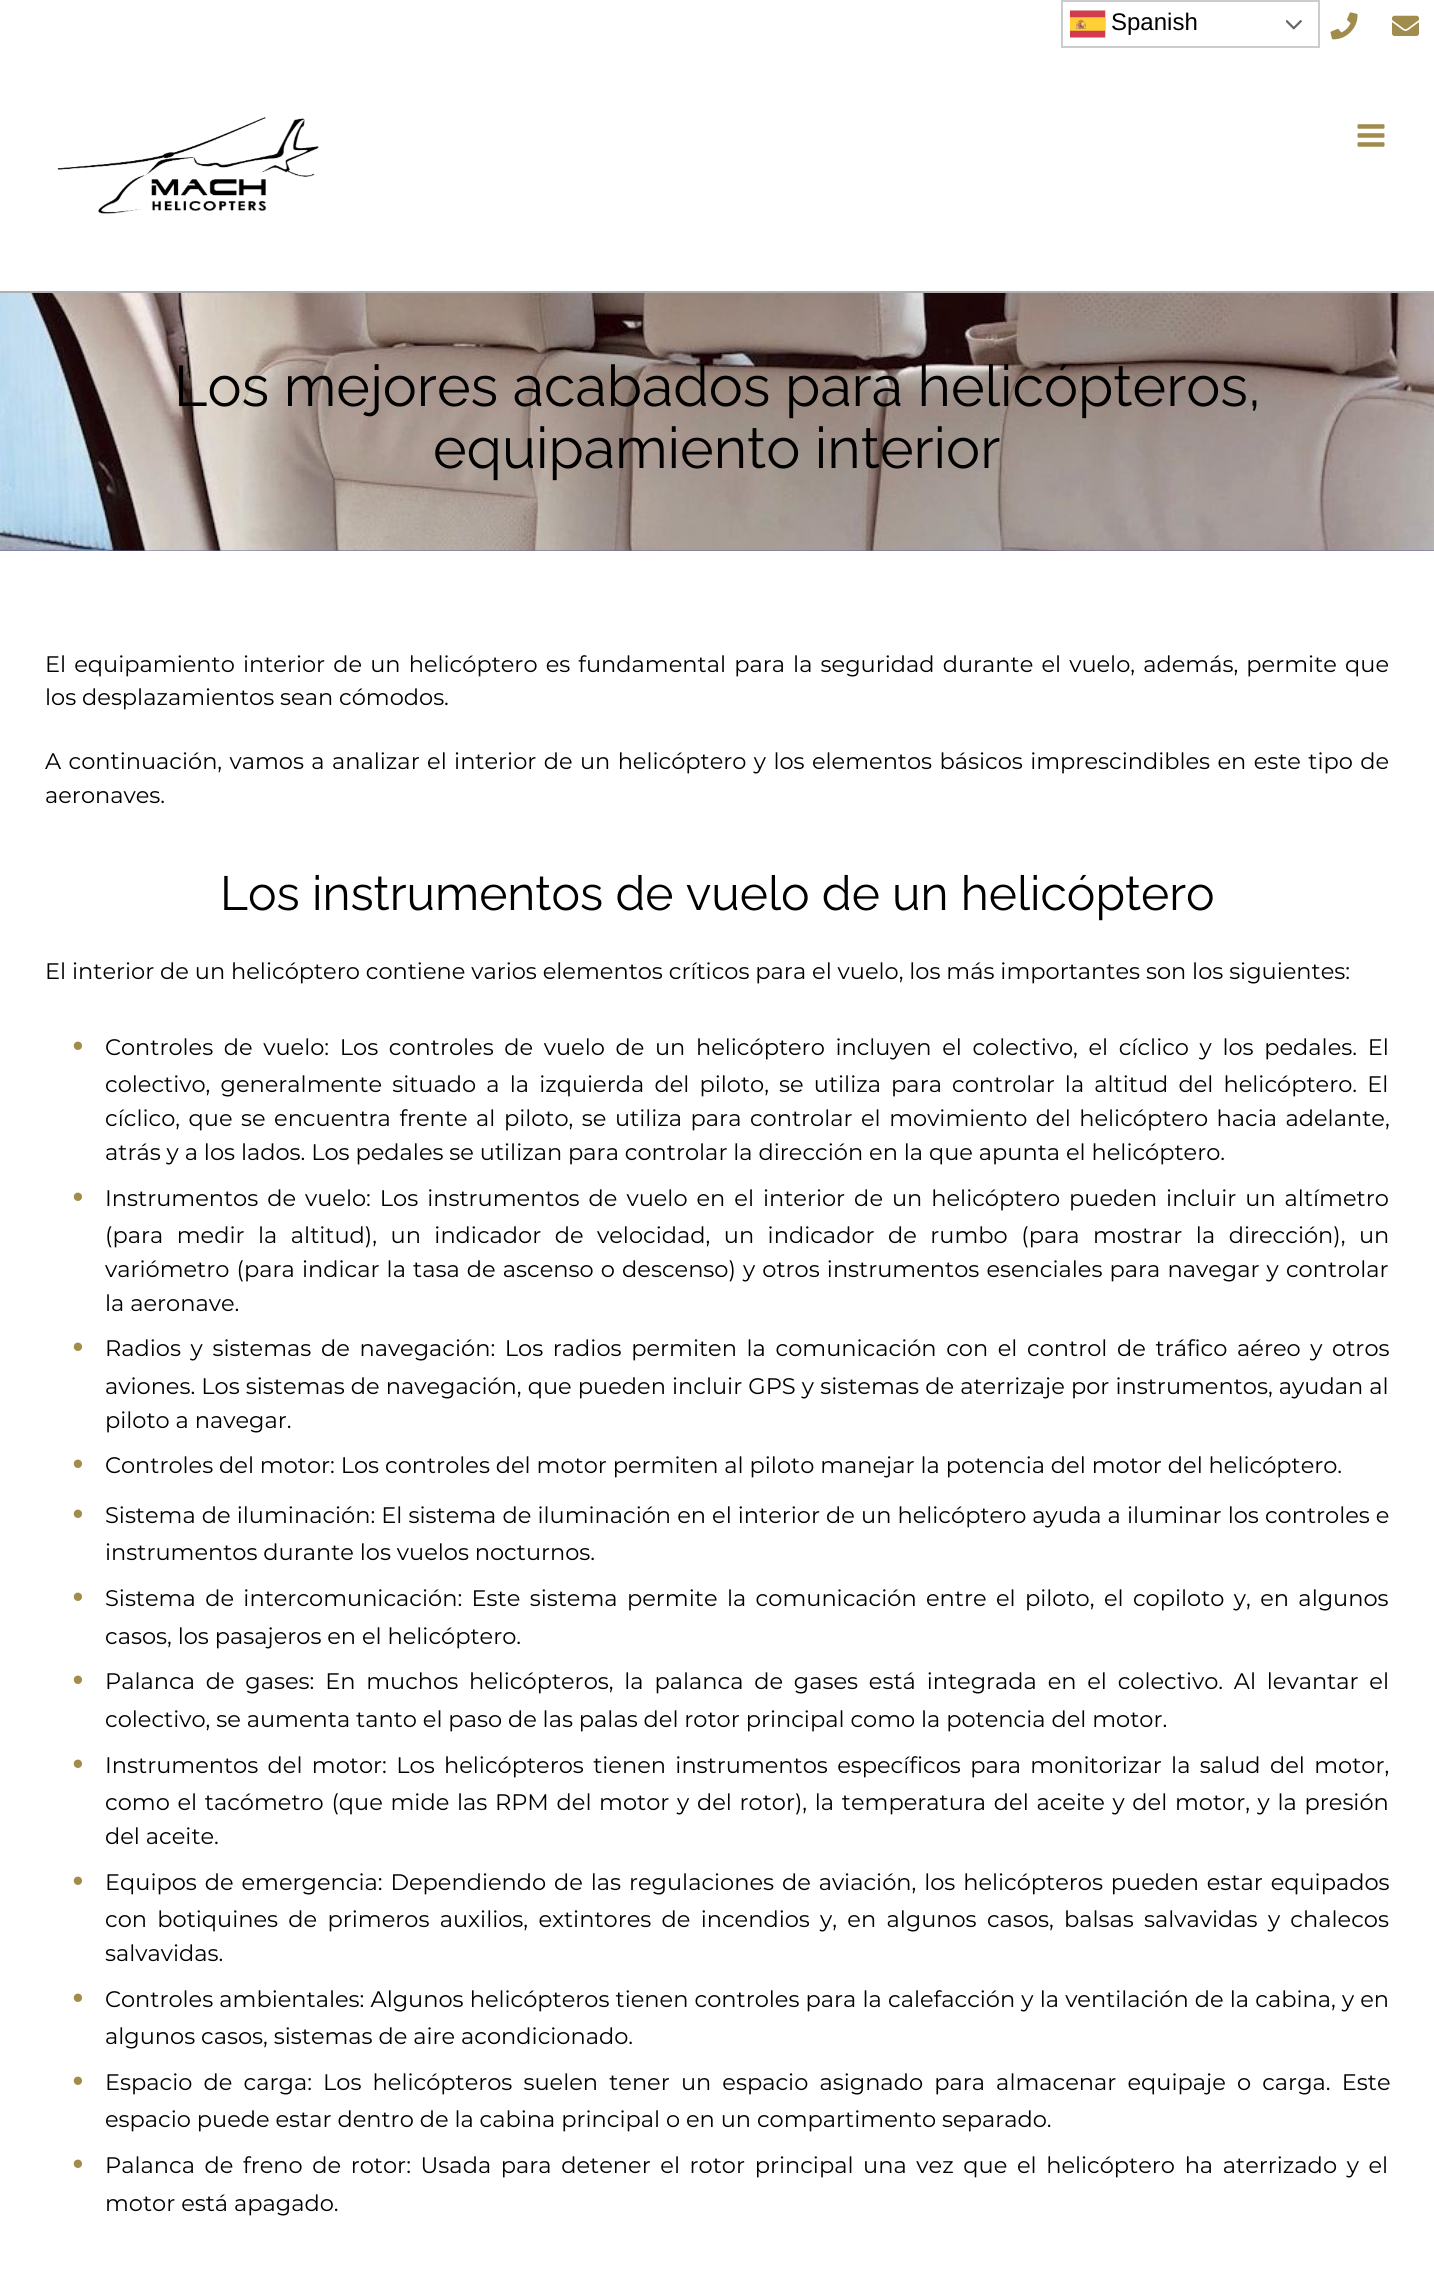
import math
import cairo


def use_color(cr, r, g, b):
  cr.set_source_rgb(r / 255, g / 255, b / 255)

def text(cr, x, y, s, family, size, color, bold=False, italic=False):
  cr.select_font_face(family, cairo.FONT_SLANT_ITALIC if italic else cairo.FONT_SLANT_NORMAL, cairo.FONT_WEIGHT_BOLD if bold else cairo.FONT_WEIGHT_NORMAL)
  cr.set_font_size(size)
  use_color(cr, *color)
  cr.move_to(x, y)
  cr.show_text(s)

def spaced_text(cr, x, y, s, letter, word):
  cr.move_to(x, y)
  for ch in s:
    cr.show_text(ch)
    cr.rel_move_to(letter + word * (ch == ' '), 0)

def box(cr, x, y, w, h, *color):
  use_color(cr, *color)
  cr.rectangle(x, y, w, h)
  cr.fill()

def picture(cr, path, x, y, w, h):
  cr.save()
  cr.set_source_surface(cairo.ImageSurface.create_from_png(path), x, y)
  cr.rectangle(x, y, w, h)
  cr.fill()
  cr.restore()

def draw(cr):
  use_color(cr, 255, 255, 255)
  cr.paint()
  cr.rectangle(1062, 1, 257, 46)
  use_color(cr, 204, 204, 204)
  cr.stroke()
  picture(cr, "img_01.png", 1070, 10, 36, 28)
  picture(cr, "img_02.png", 1286, 20, 16, 10)
  picture(cr, "img_03.png", 1330, 12, 28, 28)
  picture(cr, "img_04.png", 1392, 15, 27, 21)
  box(cr, 0, 291, 1434, 2, 176, 176, 176)
  picture(cr, "img_05.png", 57, 117, 262, 97)
  picture(cr, "img_06.png", 1357, 124, 28, 23)
  box(cr, 0, 550, 1434, 1, 102, 102, 164)
  picture(cr, "img_07.png", 0, 293, 1434, 258)
  text(cr, 1111, 30, "Spanish", "Liberation Sans", 24, (0, 0, 0))
  text(cr, 174, 406, "Los mejores acabados para helicópteros,", "Raleway Thin", 57.25, (0, 0, 0))
  text(cr, 433, 468, "equipamiento interior", "Raleway Thin", 57.25, (0, 0, 0))
  cr.select_font_face("Montserrat")
  cr.set_font_size(22.5)
  spaced_text(cr, 45, 672, "El equipamiento interior de un helicóptero es fundamental para la seguridad durante el vuelo, además, permite que", 0, 2.25)
  text(cr, 45, 705, "los desplazamientos sean cómodos.", "Montserrat", 22.5, (0, 0, 0))
  spaced_text(cr, 45, 769, "A continuación, vamos a analizar el interior de un helicóptero y los elementos básicos imprescindibles en este tipo de", 0, 1.5)
  text(cr, 45, 803, "aeronaves.", "Montserrat", 22.5, (0, 0, 0))
  text(cr, 220, 910, "Los instrumentos de vuelo de un helicóptero", "Raleway Thin", 48, (0, 0, 0))
  text(cr, 45, 979, "El interior de un helicóptero contiene varios elementos críticos para el vuelo, los más importantes son los siguientes:", "Montserrat", 22.5, (0, 0, 0))
  text(cr, 72, 1055, "•", "Montserrat", 33, (161, 141, 73), bold=True)
  cr.select_font_face("Montserrat")
  cr.set_font_size(22.5)
  use_color(cr, 0, 0, 0)
  spaced_text(cr, 105, 1055, "Controles de vuelo: Los controles de vuelo de un helicóptero incluyen el colectivo, el cíclico y los pedales. El", 0, 4.75)
  spaced_text(cr, 105, 1092, "colectivo, generalmente situado a la izquierda del piloto, se utiliza para controlar la altitud del helicóptero. El", 0, 4.25)
  spaced_text(cr, 105, 1126, "cíclico, que se encuentra frente al piloto, se utiliza para controlar el movimiento del helicóptero hacia adelante,", 0, 2.6)
  text(cr, 105, 1160, "atrás y a los lados. Los pedales se utilizan para controlar la dirección en la que apunta el helicóptero.", "Montserrat", 22.5, (0, 0, 0))
  text(cr, 72, 1206, "•", "Montserrat", 33, (161, 141, 73), bold=True)
  cr.select_font_face("Montserrat")
  cr.set_font_size(22.5)
  use_color(cr, 0, 0, 0)
  spaced_text(cr, 105, 1206, "Instrumentos de vuelo: Los instrumentos de vuelo en el interior de un helicóptero pueden incluir un altímetro", 0, 3.1)
  spaced_text(cr, 105, 1243, "(para medir la altitud), un indicador de velocidad, un indicador de rumbo (para mostrar la dirección), un", 0, 7.6)
  spaced_text(cr, 105, 1277, "variómetro (para indicar la tasa de ascenso o descenso) y otros instrumentos esenciales para navegar y controlar", 0, 1.25)
  text(cr, 105, 1311, "la aeronave.", "Montserrat", 22.5, (0, 0, 0))
  text(cr, 72, 1356, "•", "Montserrat", 33, (161, 141, 73), bold=True)
  cr.select_font_face("Montserrat")
  cr.set_font_size(22.5)
  use_color(cr, 0, 0, 0)
  spaced_text(cr, 105, 1356, "Radios y sistemas de navegación: Los radios permiten la comunicación con el control de tráfico aéreo y otros", 0, 3.75)
  spaced_text(cr, 105, 1394, "aviones. Los sistemas de navegación, que pueden incluir GPS y sistemas de aterrizaje por instrumentos, ayudan al", 0, 0.25)
  text(cr, 105, 1428, "piloto a navegar.", "Montserrat", 22.5, (0, 0, 0))
  text(cr, 72, 1473, "•", "Montserrat", 33, (161, 141, 73), bold=True)
  text(cr, 105, 1473, "Controles del motor: Los controles del motor permiten al piloto manejar la potencia del motor del helicóptero.", "Montserrat", 22.5, (0, 0, 0))
  text(cr, 72, 1523, "•", "Montserrat", 33, (161, 141, 73), bold=True)
  cr.select_font_face("Montserrat")
  cr.set_font_size(22.5)
  use_color(cr, 0, 0, 0)
  spaced_text(cr, 105, 1523, "Sistema de iluminación: El sistema de iluminación en el interior de un helicóptero ayuda a iluminar los controles e", 0, 0.2)
  text(cr, 105, 1560, "instrumentos durante los vuelos nocturnos.", "Montserrat", 22.5, (0, 0, 0))
  text(cr, 72, 1606, "•", "Montserrat", 33, (161, 141, 73), bold=True)
  cr.select_font_face("Montserrat")
  cr.set_font_size(22.5)
  use_color(cr, 0, 0, 0)
  spaced_text(cr, 105, 1606, "Sistema de intercomunicación: Este sistema permite la comunicación entre el piloto, el copiloto y, en algunos", 0, 3.5)
  text(cr, 105, 1644, "casos, los pasajeros en el helicóptero.", "Montserrat", 22.5, (0, 0, 0))
  text(cr, 72, 1689, "•", "Montserrat", 33, (161, 141, 73), bold=True)
  cr.select_font_face("Montserrat")
  cr.set_font_size(22.5)
  use_color(cr, 0, 0, 0)
  spaced_text(cr, 105, 1689, "Palanca de gases: En muchos helicópteros, la palanca de gases está integrada en el colectivo. Al levantar el", 0, 4.9)
  text(cr, 105, 1727, "colectivo, se aumenta tanto el paso de las palas del rotor principal como la potencia del motor.", "Montserrat", 22.5, (0, 0, 0))
  text(cr, 72, 1773, "•", "Montserrat", 33, (161, 141, 73), bold=True)
  cr.select_font_face("Montserrat")
  cr.set_font_size(22.5)
  use_color(cr, 0, 0, 0)
  spaced_text(cr, 105, 1773, "Instrumentos del motor: Los helicópteros tienen instrumentos específicos para monitorizar la salud del motor,", 0, 3.5)
  spaced_text(cr, 105, 1810, "como el tacómetro (que mide las RPM del motor y del rotor), la temperatura del aceite y del motor, y la presión", 0, 1.8)
  text(cr, 105, 1844, "del aceite.", "Montserrat", 22.5, (0, 0, 0))
  text(cr, 72, 1890, "•", "Montserrat", 33, (161, 141, 73), bold=True)
  cr.select_font_face("Montserrat")
  cr.set_font_size(22.5)
  use_color(cr, 0, 0, 0)
  spaced_text(cr, 105, 1890, "Equipos de emergencia: Dependiendo de las regulaciones de aviación, los helicópteros pueden estar equipados", 0, 2)
  spaced_text(cr, 105, 1927, "con botiquines de primeros auxilios, extintores de incendios y, en algunos casos, balsas salvavidas y chalecos", 0, 4.4)
  text(cr, 105, 1961, "salvavidas.", "Montserrat", 22.5, (0, 0, 0))
  text(cr, 72, 2007, "•", "Montserrat", 33, (161, 141, 73), bold=True)
  cr.select_font_face("Montserrat")
  cr.set_font_size(22.5)
  use_color(cr, 0, 0, 0)
  spaced_text(cr, 105, 2007, "Controles ambientales: Algunos helicópteros tienen controles para la calefacción y la ventilación de la cabina, y en", 0, 0.25)
  text(cr, 105, 2044, "algunos casos, sistemas de aire acondicionado.", "Montserrat", 22.5, (0, 0, 0))
  text(cr, 72, 2090, "•", "Montserrat", 33, (161, 141, 73), bold=True)
  cr.select_font_face("Montserrat")
  cr.set_font_size(22.5)
  use_color(cr, 0, 0, 0)
  spaced_text(cr, 105, 2090, "Espacio de carga: Los helicópteros suelen tener un espacio asignado para almacenar equipaje o carga. Este", 0, 5.25)
  text(cr, 105, 2127, "espacio puede estar dentro de la cabina principal o en un compartimento separado.", "Montserrat", 22.5, (0, 0, 0))
  text(cr, 72, 2173, "•", "Montserrat", 33, (161, 141, 73), bold=True)
  cr.select_font_face("Montserrat")
  cr.set_font_size(22.5)
  use_color(cr, 0, 0, 0)
  spaced_text(cr, 105, 2173, "Palanca de freno de rotor: Usada para detener el rotor principal una vez que el helicóptero ha aterrizado y el", 0, 3.75)
  text(cr, 105, 2211, "motor está apagado.", "Montserrat", 22.5, (0, 0, 0))


surface = cairo.ImageSurface(cairo.FORMAT_RGB24, 1434, 2270)
cr = cairo.Context(surface)
options = cairo.FontOptions()
options.set_hint_metrics(cairo.HINT_METRICS_OFF)
options.set_hint_style(cairo.HINT_STYLE_NONE)
cr.set_font_options(options)
cr.set_miter_limit(4)
draw(cr)
surface.write_to_png("out.png")
